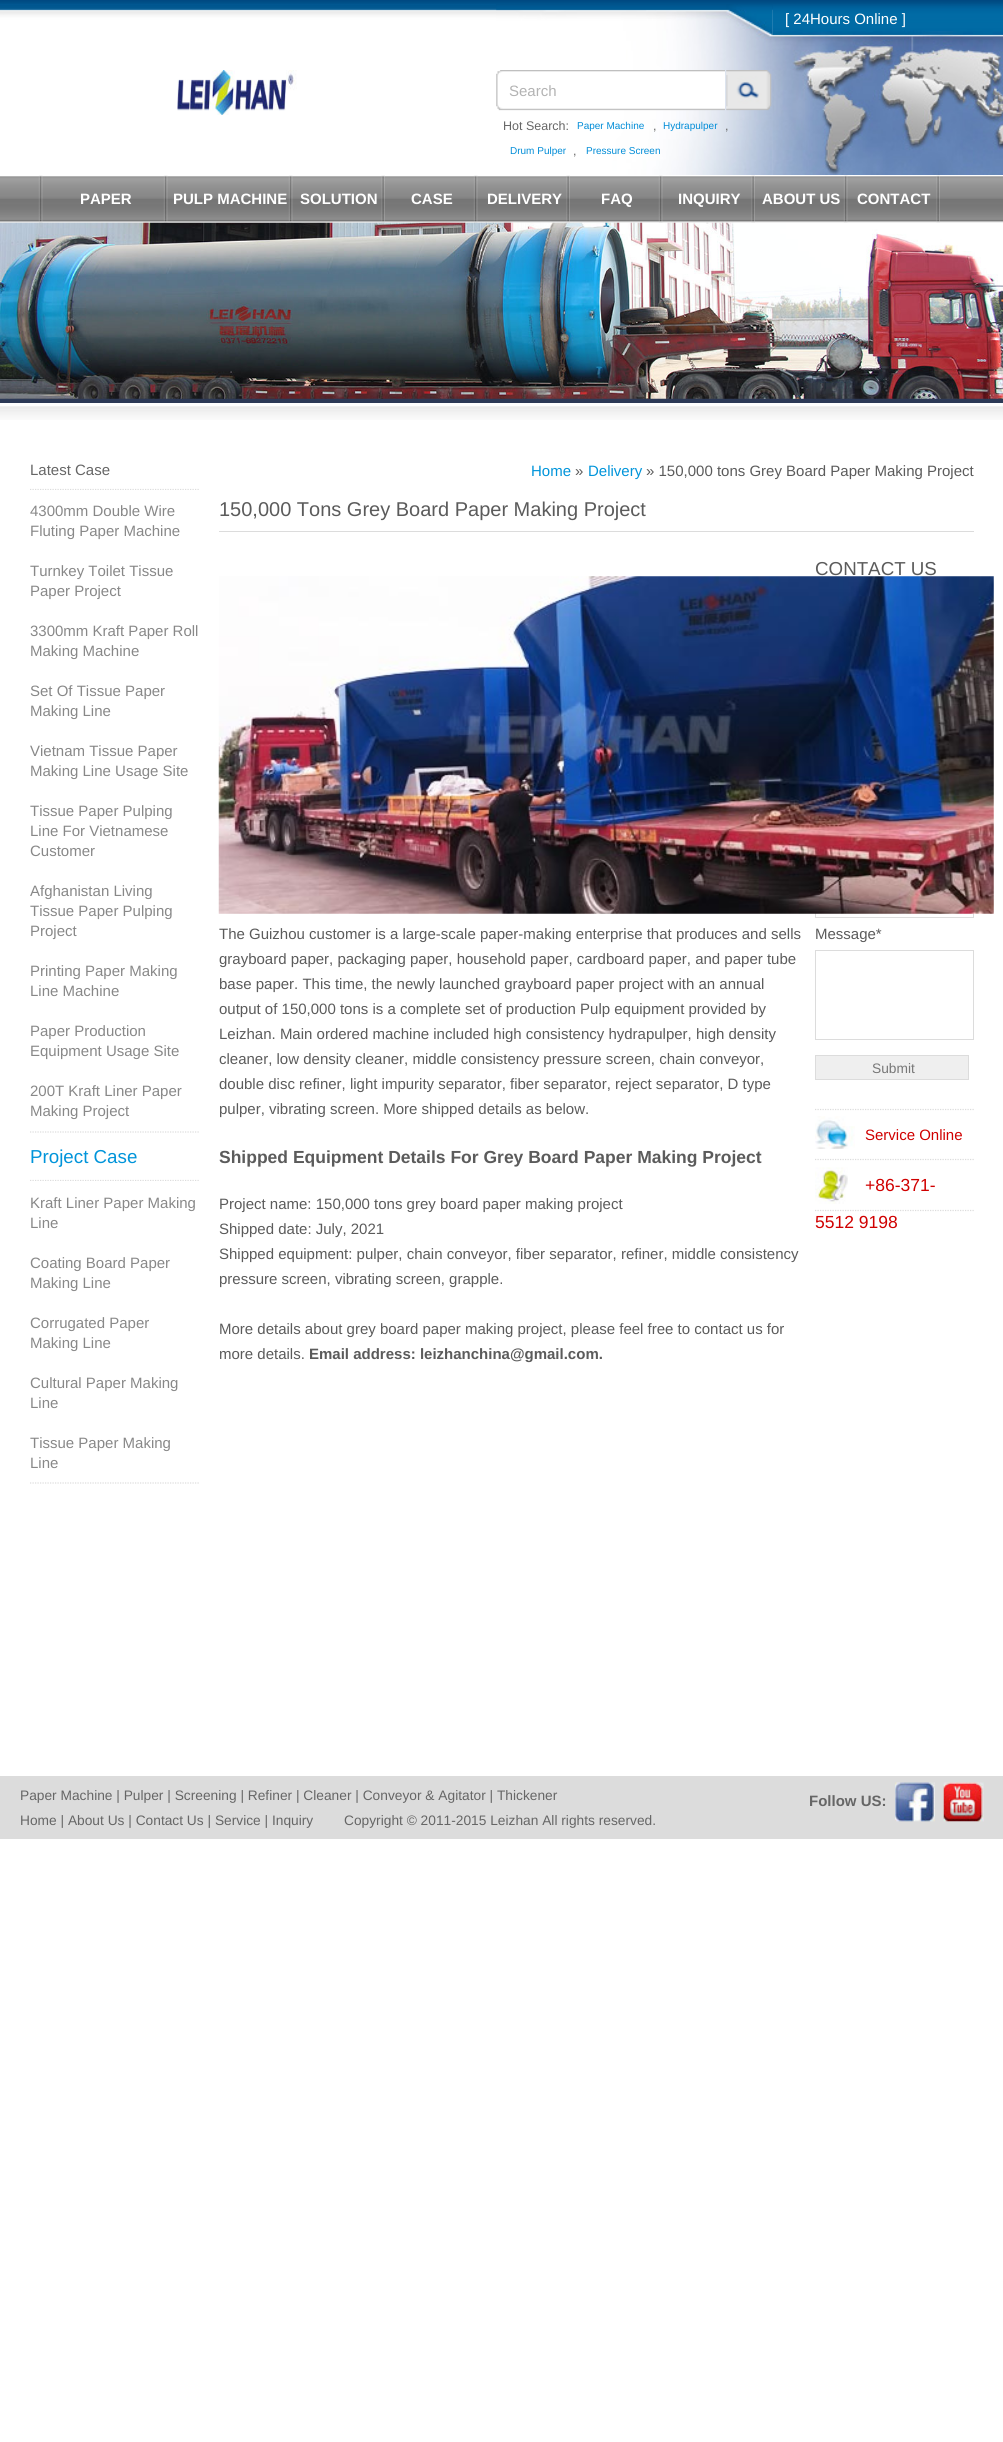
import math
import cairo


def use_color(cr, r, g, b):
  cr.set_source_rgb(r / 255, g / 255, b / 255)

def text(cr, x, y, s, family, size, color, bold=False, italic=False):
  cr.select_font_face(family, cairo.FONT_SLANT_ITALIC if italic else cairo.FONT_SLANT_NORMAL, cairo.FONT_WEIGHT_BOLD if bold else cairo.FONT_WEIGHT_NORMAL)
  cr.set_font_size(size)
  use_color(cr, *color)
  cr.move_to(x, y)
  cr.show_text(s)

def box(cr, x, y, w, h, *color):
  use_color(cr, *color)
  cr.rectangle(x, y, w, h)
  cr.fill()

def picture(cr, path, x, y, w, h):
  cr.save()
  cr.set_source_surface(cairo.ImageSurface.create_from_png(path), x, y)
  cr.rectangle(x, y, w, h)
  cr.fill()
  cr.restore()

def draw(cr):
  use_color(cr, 255, 255, 255)
  cr.paint()
  picture(cr, "img_01.png", 0, 0, 1003, 175)
  picture(cr, "img_03.png", 0, 5, 773, 170)
  picture(cr, "img_04.png", 496, 4, 277, 171)
  picture(cr, "img_02.png", 772, 9, 231, 166)
  picture(cr, "img_05.png", 177, 70, 120, 45)
  picture(cr, "img_06.png", 496, 70, 229, 41)
  picture(cr, "img_07.png", 726, 70, 46, 41)
  picture(cr, "img_08.png", 0, 176, 1003, 47)
  picture(cr, "img_09.png", 38, 175, 5, 48)
  picture(cr, "img_09.png", 163, 175, 5, 48)
  picture(cr, "img_09.png", 288, 175, 5, 48)
  picture(cr, "img_10.png", 381, 175, 4, 48)
  picture(cr, "img_09.png", 473, 175, 5, 48)
  picture(cr, "img_10.png", 566, 175, 4, 48)
  picture(cr, "img_09.png", 658, 175, 5, 48)
  picture(cr, "img_10.png", 751, 175, 4, 48)
  picture(cr, "img_09.png", 843, 175, 5, 48)
  picture(cr, "img_10.png", 936, 175, 4, 48)
  box(cr, 0, 398, 1003, 5, 45, 58, 87)
  picture(cr, "img_11.png", 0, 222, 1003, 177)
  picture(cr, "img_12.png", 0, 406, 1003, 14)
  cr.new_path()
  cr.move_to(30, 489.5)
  cr.line_to(200, 489.5)
  use_color(cr, 220, 220, 220)
  cr.set_line_width(1.2)
  cr.set_dash([1.25, 1.25])
  cr.stroke()
  box(cr, 30, 490, 170, 1, 255, 255, 255)
  cr.new_path()
  cr.move_to(30, 1132)
  cr.line_to(200, 1132)
  use_color(cr, 220, 220, 220)
  cr.stroke()
  cr.new_path()
  cr.move_to(30, 1180.5)
  cr.line_to(200, 1180.5)
  cr.stroke()
  box(cr, 30, 1181, 170, 1, 255, 255, 255)
  cr.new_path()
  cr.move_to(30, 1483)
  cr.line_to(200, 1483)
  use_color(cr, 220, 220, 220)
  cr.stroke()
  box(cr, 219, 531, 755, 1, 220, 220, 220)
  cr.rectangle(815.5, 890.5, 158, 27)
  cr.set_line_width(1)
  cr.set_dash([])
  cr.stroke()
  picture(cr, "img_13.png", 218, 576, 776, 338)
  cr.rectangle(815.5, 950.5, 158, 89)
  cr.stroke()
  use_color(cr, 239, 239, 239)
  cr.rectangle(815.5, 1055.5, 153, 24)
  cr.fill_preserve()
  use_color(cr, 220, 220, 220)
  cr.stroke()
  picture(cr, "img_14.png", 815, 1116, 40, 33)
  cr.new_path()
  cr.move_to(815, 1109.5)
  cr.line_to(974, 1109.5)
  cr.set_line_width(1.2)
  cr.set_dash([1.25, 1.25])
  cr.stroke()
  cr.new_path()
  cr.move_to(815, 1159.5)
  cr.line_to(974, 1159.5)
  cr.stroke()
  picture(cr, "img_15.png", 815, 1167, 33, 37)
  cr.new_path()
  cr.move_to(815, 1210.5)
  cr.line_to(974, 1210.5)
  cr.stroke()
  box(cr, 0, 1776, 1003, 63, 220, 220, 220)
  picture(cr, "img_16.png", 895, 1782, 40, 40)
  picture(cr, "img_17.png", 943, 1782, 41, 40)
  text(cr, 785, 24, "[ 24Hours Online ]", "Liberation Sans", 15, (255, 255, 255))
  text(cr, 509, 96, "Search", "Liberation Sans", 15, (179, 179, 179))
  text(cr, 503, 130, "Hot Search:", "Liberation Sans", 12.5, (102, 102, 102))
  text(cr, 577, 129, "Paper Machine", "Liberation Sans", 10, (0, 140, 215))
  text(cr, 653, 130, ",", "Liberation Sans", 12.5, (102, 102, 102))
  text(cr, 663, 129, "Hydrapulper", "Liberation Sans", 10, (0, 140, 215))
  text(cr, 725, 130, ",", "Liberation Sans", 12.5, (102, 102, 102))
  text(cr, 510, 154, "Drum Pulper", "Liberation Sans", 10, (0, 140, 215))
  text(cr, 573, 155, ",", "Liberation Sans", 12.5, (102, 102, 102))
  text(cr, 586, 154, "Pressure Screen", "Liberation Sans", 10, (0, 140, 215))
  text(cr, 80, 204, "PAPER", "Liberation Sans", 15, (255, 255, 255), bold=True)
  text(cr, 173, 204, "PULP MACHINE", "Liberation Sans", 15, (255, 255, 255), bold=True)
  text(cr, 300, 204, "SOLUTION", "Liberation Sans", 15, (255, 255, 255), bold=True)
  text(cr, 411, 204, "CASE", "Liberation Sans", 15, (255, 255, 255), bold=True)
  text(cr, 487, 204, "DELIVERY", "Liberation Sans", 15, (255, 255, 255), bold=True)
  text(cr, 601, 204, "FAQ", "Liberation Sans", 15, (255, 255, 255), bold=True)
  text(cr, 678, 204, "INQUIRY", "Liberation Sans", 15, (255, 255, 255), bold=True)
  text(cr, 762, 204, "ABOUT US", "Liberation Sans", 15, (255, 255, 255), bold=True)
  text(cr, 857, 204, "CONTACT", "Liberation Sans", 15, (255, 255, 255), bold=True)
  text(cr, 30, 475, "Latest Case", "Liberation Sans", 15, (102, 102, 102))
  text(cr, 30, 516, "4300mm Double Wire", "Liberation Sans", 15, (136, 136, 136))
  text(cr, 30, 536, "Fluting Paper Machine", "Liberation Sans", 15, (136, 136, 136))
  text(cr, 30, 576, "Turnkey Toilet Tissue", "Liberation Sans", 15, (136, 136, 136))
  text(cr, 30, 596, "Paper Project", "Liberation Sans", 15, (136, 136, 136))
  text(cr, 30, 636, "3300mm Kraft Paper Roll", "Liberation Sans", 15, (136, 136, 136))
  text(cr, 30, 656, "Making Machine", "Liberation Sans", 15, (136, 136, 136))
  text(cr, 30, 696, "Set Of Tissue Paper", "Liberation Sans", 15, (136, 136, 136))
  text(cr, 30, 716, "Making Line", "Liberation Sans", 15, (136, 136, 136))
  text(cr, 30, 756, "Vietnam Tissue Paper", "Liberation Sans", 15, (136, 136, 136))
  text(cr, 30, 776, "Making Line Usage Site", "Liberation Sans", 15, (136, 136, 136))
  text(cr, 30, 816, "Tissue Paper Pulping", "Liberation Sans", 15, (136, 136, 136))
  text(cr, 30, 836, "Line For Vietnamese", "Liberation Sans", 15, (136, 136, 136))
  text(cr, 30, 856, "Customer", "Liberation Sans", 15, (136, 136, 136))
  text(cr, 30, 896, "Afghanistan Living", "Liberation Sans", 15, (136, 136, 136))
  text(cr, 30, 916, "Tissue Paper Pulping", "Liberation Sans", 15, (136, 136, 136))
  text(cr, 30, 936, "Project", "Liberation Sans", 15, (136, 136, 136))
  text(cr, 30, 976, "Printing Paper Making", "Liberation Sans", 15, (136, 136, 136))
  text(cr, 30, 996, "Line Machine", "Liberation Sans", 15, (136, 136, 136))
  text(cr, 30, 1036, "Paper Production", "Liberation Sans", 15, (136, 136, 136))
  text(cr, 30, 1056, "Equipment Usage Site", "Liberation Sans", 15, (136, 136, 136))
  text(cr, 30, 1096, "200T Kraft Liner Paper", "Liberation Sans", 15, (136, 136, 136))
  text(cr, 30, 1116, "Making Project", "Liberation Sans", 15, (136, 136, 136))
  text(cr, 30, 1163, "Project Case", "Liberation Sans", 18.75, (0, 148, 218))
  text(cr, 30, 1208, "Kraft Liner Paper Making", "Liberation Sans", 15, (136, 136, 136))
  text(cr, 30, 1228, "Line", "Liberation Sans", 15, (136, 136, 136))
  text(cr, 30, 1268, "Coating Board Paper", "Liberation Sans", 15, (136, 136, 136))
  text(cr, 30, 1288, "Making Line", "Liberation Sans", 15, (136, 136, 136))
  text(cr, 30, 1328, "Corrugated Paper", "Liberation Sans", 15, (136, 136, 136))
  text(cr, 30, 1348, "Making Line", "Liberation Sans", 15, (136, 136, 136))
  text(cr, 30, 1388, "Cultural Paper Making", "Liberation Sans", 15, (136, 136, 136))
  text(cr, 30, 1408, "Line", "Liberation Sans", 15, (136, 136, 136))
  text(cr, 30, 1448, "Tissue Paper Making", "Liberation Sans", 15, (136, 136, 136))
  text(cr, 30, 1468, "Line", "Liberation Sans", 15, (136, 136, 136))
  text(cr, 531, 476, "Home", "Liberation Sans", 15, (0, 148, 218))
  text(cr, 575, 476, "»", "Liberation Sans", 15, (91, 91, 91))
  text(cr, 588, 476, "Delivery", "Liberation Sans", 15, (0, 148, 218))
  text(cr, 646, 476, "» 150,000 tons Grey Board Paper Making Project", "Liberation Sans", 15, (91, 91, 91))
  text(cr, 219, 516, "150,000 Tons Grey Board Paper Making Project", "Liberation Sans", 20, (91, 91, 91))
  text(cr, 219, 939, "The Guizhou customer is a large-scale paper-making enterprise that produces and sells", "Liberation Sans", 15, (91, 91, 91))
  text(cr, 219, 964, "grayboard paper, packaging paper, household paper, cardboard paper, and paper tube", "Liberation Sans", 15, (91, 91, 91))
  text(cr, 219, 989, "base paper. This time, the newly launched grayboard paper project with an annual", "Liberation Sans", 15, (91, 91, 91))
  text(cr, 219, 1014, "output of 150,000 tons is a complete set of production Pulp equipment provided by", "Liberation Sans", 15, (91, 91, 91))
  text(cr, 219, 1039, "Leizhan. Main ordered machine included high consistency hydrapulper, high density", "Liberation Sans", 15, (91, 91, 91))
  text(cr, 219, 1064, "cleaner, low density cleaner, middle consistency pressure screen, chain conveyor,", "Liberation Sans", 15, (91, 91, 91))
  text(cr, 219, 1089, "double disc refiner, light impurity separator, fiber separator, reject separator, D type", "Liberation Sans", 15, (91, 91, 91))
  text(cr, 219, 1114, "pulper, vibrating screen. More shipped details as below.", "Liberation Sans", 15, (91, 91, 91))
  text(cr, 219, 1163, "Shipped Equipment Details For Grey Board Paper Making Project", "Liberation Sans", 17.5, (91, 91, 91), bold=True)
  text(cr, 219, 1209, "Project name: 150,000 tons grey board paper making project", "Liberation Sans", 15, (91, 91, 91))
  text(cr, 219, 1234, "Shipped date: July, 2021", "Liberation Sans", 15, (91, 91, 91))
  text(cr, 219, 1259, "Shipped equipment: pulper, chain conveyor, fiber separator, refiner, middle consistency", "Liberation Sans", 15, (91, 91, 91))
  text(cr, 219, 1284, "pressure screen, vibrating screen, grapple.", "Liberation Sans", 15, (91, 91, 91))
  text(cr, 219, 1334, "More details about grey board paper making project, please feel free to contact us for", "Liberation Sans", 15, (91, 91, 91))
  text(cr, 219, 1359, "more details.", "Liberation Sans", 15, (91, 91, 91))
  text(cr, 309, 1359, "Email address: leizhanchina@gmail.com.", "Liberation Sans", 15, (91, 91, 91), bold=True)
  text(cr, 815, 575, "CONTACT US", "Liberation Sans", 18.75, (91, 91, 91))
  text(cr, 815, 939, "Message*", "Liberation Sans", 15, (91, 91, 91))
  text(cr, 872, 1073, "Submit", "Liberation Sans", 13.75, (119, 119, 119))
  text(cr, 865, 1140, "Service Online", "Liberation Sans", 15, (208, 0, 0))
  text(cr, 865, 1191, "+86-371-", "Liberation Sans", 17.5, (208, 0, 0))
  text(cr, 815, 1228, "5512 9198", "Liberation Sans", 17.5, (208, 0, 0))
  text(cr, 20, 1800, "Paper Machine | Pulper | Screening | Refiner | Cleaner | Conveyor & Agitator | Thickener", "Liberation Sans", 13.75, (102, 102, 102))
  text(cr, 809, 1806, "Follow US:", "Liberation Sans", 15, (102, 102, 102), bold=True)
  text(cr, 20, 1825, "Home | About Us | Contact Us | Service | Inquiry", "Liberation Sans", 13.75, (102, 102, 102))
  text(cr, 344, 1825, "Copyright © 2011-2015 Leizhan All rights reserved.", "Liberation Sans", 13.75, (102, 102, 102))


surface = cairo.ImageSurface(cairo.FORMAT_RGB24, 1003, 2442)
cr = cairo.Context(surface)
options = cairo.FontOptions()
options.set_hint_metrics(cairo.HINT_METRICS_OFF)
options.set_hint_style(cairo.HINT_STYLE_NONE)
cr.set_font_options(options)
cr.set_miter_limit(4)
draw(cr)
surface.write_to_png("out.png")
